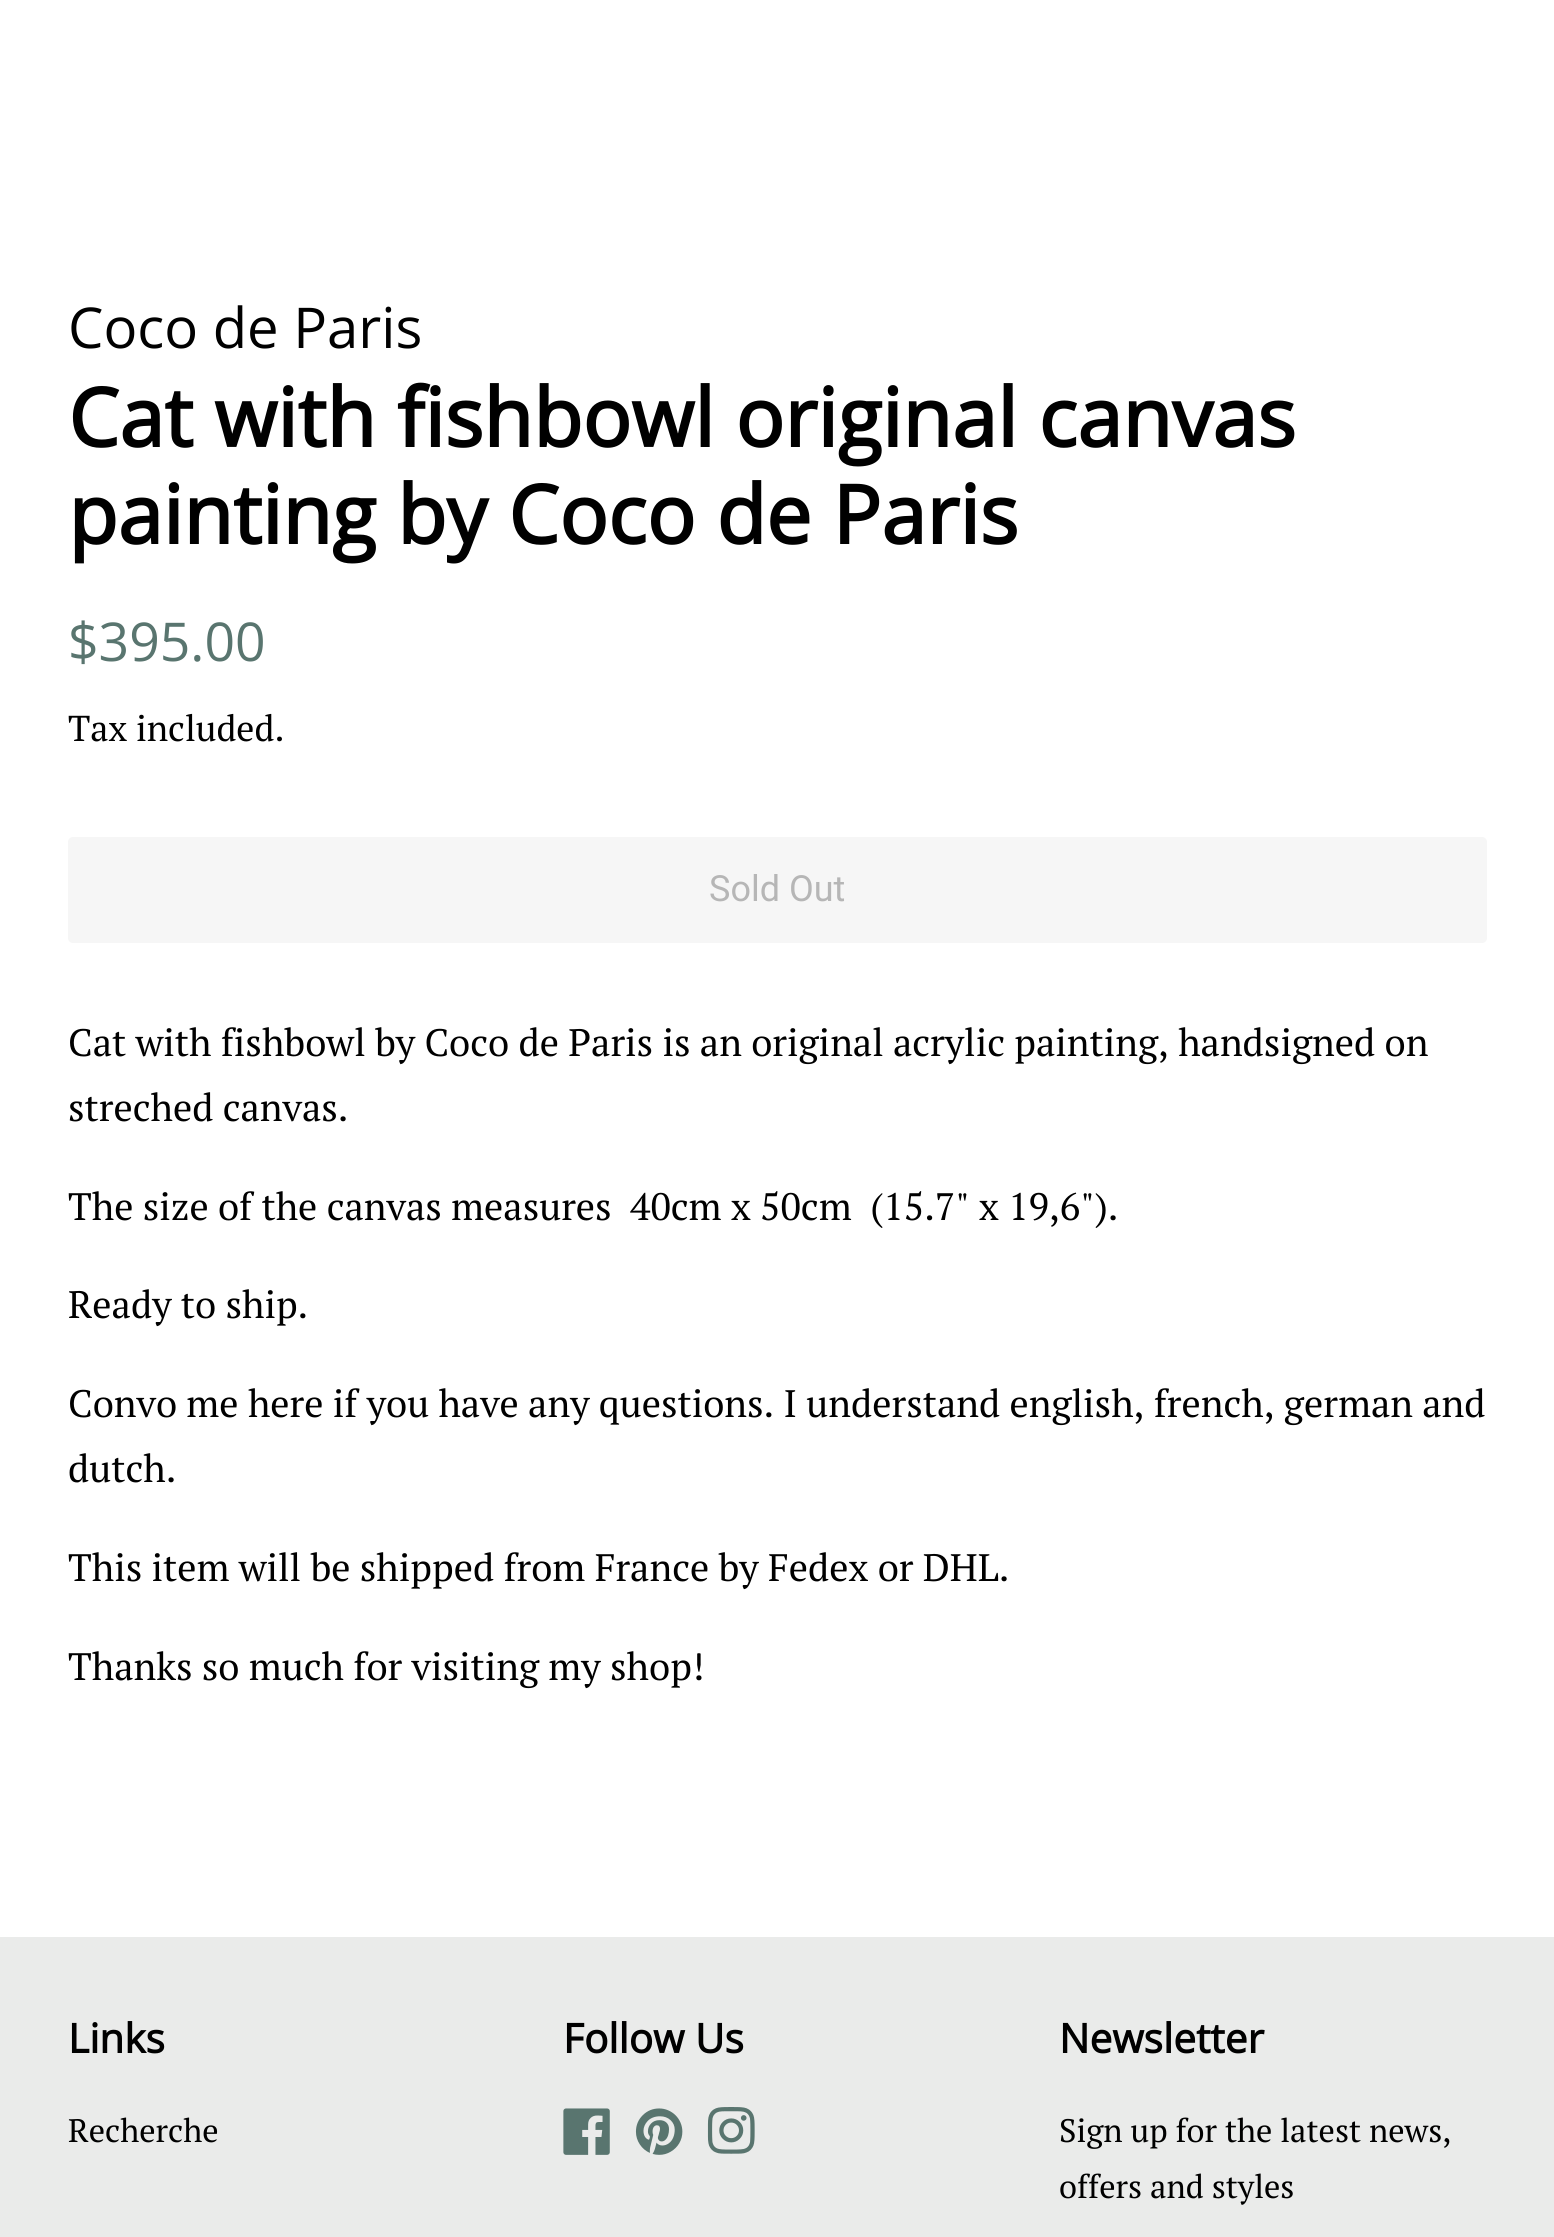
import math
import cairo


def use_color(cr, r, g, b):
  cr.set_source_rgb(r / 255, g / 255, b / 255)

def text(cr, x, y, s, family, size, color, bold=False, italic=False):
  cr.select_font_face(family, cairo.FONT_SLANT_ITALIC if italic else cairo.FONT_SLANT_NORMAL, cairo.FONT_WEIGHT_BOLD if bold else cairo.FONT_WEIGHT_NORMAL)
  cr.set_font_size(size)
  use_color(cr, *color)
  cr.move_to(x, y)
  cr.show_text(s)

def box(cr, x, y, w, h, *color):
  use_color(cr, *color)
  cr.rectangle(x, y, w, h)
  cr.fill()

def round_rect(cr, x, y, w, h, r):
  cr.new_sub_path()
  for i, (u, v) in enumerate([(x + w - r, y + h - r), (x + r, y + h - r), (x + r, y + r), (x + w - r, y + r)]):
    cr.arc(u, v, r, i * math.pi / 2, (i + 1) * math.pi / 2)
  cr.close_path()

def picture(cr, path, x, y, w, h):
  cr.save()
  cr.set_source_surface(cairo.ImageSurface.create_from_png(path), x, y)
  cr.rectangle(x, y, w, h)
  cr.fill()
  cr.restore()

def draw(cr):
  use_color(cr, 255, 255, 255)
  cr.paint()
  use_color(cr, 246, 246, 246)
  round_rect(cr, 68, 837, 1419, 106, 5)
  cr.fill()
  box(cr, 0, 1937, 1554, 300, 234, 235, 234)
  picture(cr, "img_01.png", 563, 2108, 47, 47)
  picture(cr, "img_02.png", 635, 2108, 48, 47)
  picture(cr, "img_03.png", 707, 2107, 48, 47)
  text(cr, 68, 348, "Coco de Paris", "Open Sans", 56.25, (0, 0, 0))
  text(cr, 68, 447, "Cat with fishbowl original canvas", "Open Sans", 81, (0, 0, 0), bold=True)
  text(cr, 68, 544, "painting by Coco de Paris", "Open Sans", 81, (0, 0, 0), bold=True)
  text(cr, 68, 661, "$395.00", "Open Sans", 53.5, (89, 117, 111))
  text(cr, 68, 741, "Tax included.", "PT Serif", 36, (0, 0, 0))
  text(cr, 709, 901, "Sold Out", "Roboto", 36, (182, 182, 182))
  text(cr, 68, 1056, "Cat with fishbowl by Coco de Paris is an original acrylic painting, handsigned on", "PT Serif", 38.25, (0, 0, 0))
  text(cr, 68, 1121, "streched canvas.", "PT Serif", 38.25, (0, 0, 0))
  text(cr, 68, 1220, "The size of the canvas measures", "PT Serif", 38.25, (0, 0, 0))
  text(cr, 630, 1220, "40cm x 50cm  (15.7\" x 19,6\").", "PT Serif", 38.25, (0, 0, 0))
  text(cr, 68, 1318, "Ready to ship.", "PT Serif", 38.25, (0, 0, 0))
  text(cr, 68, 1417, "Convo me here if you have any questions. I understand english, french, german and", "PT Serif", 38.25, (0, 0, 0))
  text(cr, 68, 1482, "dutch.", "PT Serif", 38.25, (0, 0, 0))
  text(cr, 68, 1581, "This item will be shipped from France by Fedex or DHL.", "PT Serif", 38.25, (0, 0, 0))
  text(cr, 68, 1680, "Thanks so much for visiting my shop!", "PT Serif", 38.25, (0, 0, 0))
  text(cr, 68, 2053, "Links", "Open Sans", 40.5, (0, 0, 0), bold=True)
  text(cr, 68, 2142, "Recherche", "PT Serif", 32.5, (0, 0, 0))
  text(cr, 563, 2053, "Follow Us", "Open Sans", 40.5, (0, 0, 0), bold=True)
  text(cr, 1059, 2053, "Newsletter", "Open Sans", 40.5, (0, 0, 0), bold=True)
  text(cr, 1059, 2142, "Sign up for the latest news,", "PT Serif", 32.5, (0, 0, 0))
  text(cr, 1059, 2198, "offers and styles", "PT Serif", 32.5, (0, 0, 0))


surface = cairo.ImageSurface(cairo.FORMAT_RGB24, 1554, 2237)
cr = cairo.Context(surface)
options = cairo.FontOptions()
options.set_hint_metrics(cairo.HINT_METRICS_OFF)
options.set_hint_style(cairo.HINT_STYLE_NONE)
cr.set_font_options(options)
cr.set_miter_limit(4)
draw(cr)
surface.write_to_png("out.png")
